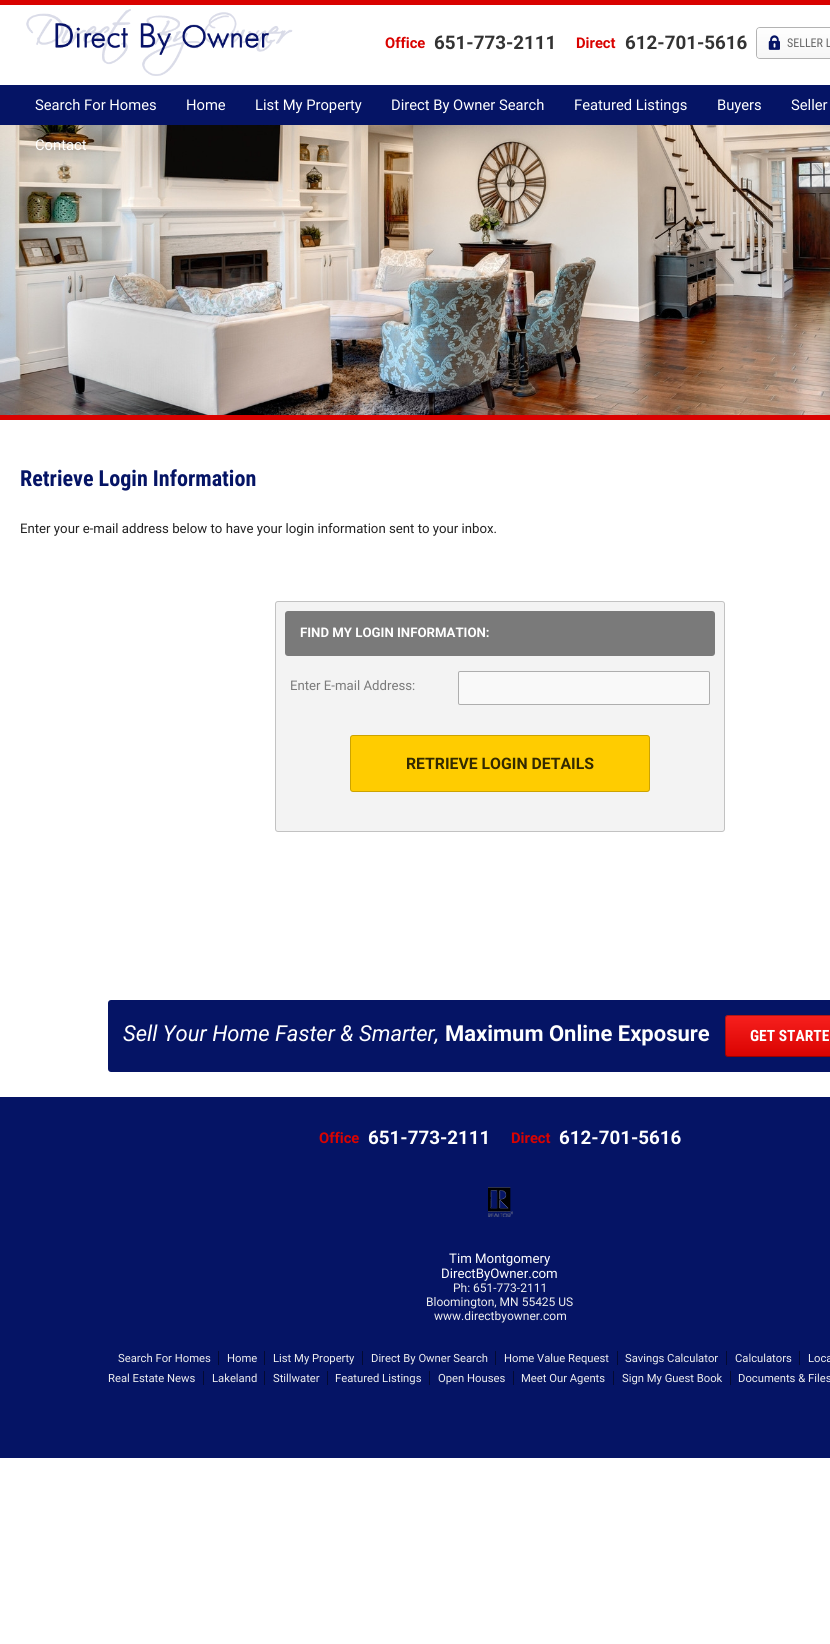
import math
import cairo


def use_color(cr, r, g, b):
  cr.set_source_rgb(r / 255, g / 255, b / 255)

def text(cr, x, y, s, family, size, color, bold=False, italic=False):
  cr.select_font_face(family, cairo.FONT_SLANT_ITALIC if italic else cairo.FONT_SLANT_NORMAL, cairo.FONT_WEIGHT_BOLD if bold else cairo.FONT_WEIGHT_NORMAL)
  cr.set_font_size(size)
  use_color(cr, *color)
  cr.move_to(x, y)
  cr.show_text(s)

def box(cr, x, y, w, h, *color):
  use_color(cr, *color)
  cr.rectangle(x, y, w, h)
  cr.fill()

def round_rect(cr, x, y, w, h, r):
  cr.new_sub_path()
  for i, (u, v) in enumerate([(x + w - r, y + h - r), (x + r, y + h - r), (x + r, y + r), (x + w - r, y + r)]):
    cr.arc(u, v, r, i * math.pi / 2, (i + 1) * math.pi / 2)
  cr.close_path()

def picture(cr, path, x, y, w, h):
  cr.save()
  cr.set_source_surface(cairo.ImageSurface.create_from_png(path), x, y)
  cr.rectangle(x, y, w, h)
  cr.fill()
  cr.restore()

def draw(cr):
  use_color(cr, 255, 255, 255)
  cr.paint()
  box(cr, 0, 0, 830, 5, 217, 2, 0)
  box(cr, 0, 85, 830, 40, 5, 20, 101)
  picture(cr, "img_01.png", 26, 9, 267, 67)
  round_rect(cr, 756.5, 27.5, 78, 31, 3.5)
  use_color(cr, 179, 179, 179)
  cr.set_line_width(1)
  cr.stroke()
  gradient = cairo.LinearGradient(812, 28, 812, 58)
  gradient.add_color_stop_rgba(0, 0.996, 0.996, 0.996, 1)
  gradient.add_color_stop_rgba(1, 0.965, 0.965, 0.965, 1)
  cr.set_source(gradient)
  round_rect(cr, 757, 28, 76, 30, 3)
  cr.fill()
  picture(cr, "img_02.png", 768, 35, 12, 15)
  box(cr, 0, 415, 830, 5, 217, 2, 0)
  picture(cr, "img_03.png", 0, 125, 830, 290)
  use_color(cr, 243, 243, 243)
  round_rect(cr, 275, 601, 450, 231, 3)
  cr.fill()
  round_rect(cr, 275.5, 601.5, 449, 230, 2.5)
  cr.set_source_rgba(0, 0, 0, 0.2)
  cr.stroke()
  use_color(cr, 122, 122, 122)
  round_rect(cr, 285, 611, 430, 45, 3)
  cr.fill()
  use_color(cr, 249, 249, 249)
  round_rect(cr, 458.5, 671.5, 251, 33, 1.5)
  cr.fill_preserve()
  use_color(cr, 174, 174, 174)
  cr.stroke()
  use_color(cr, 255, 204, 0)
  round_rect(cr, 350, 735, 300, 57, 3)
  cr.fill()
  round_rect(cr, 350.5, 735.5, 299, 56, 2.5)
  cr.set_source_rgba(0, 0, 0, 0.2)
  cr.stroke()
  use_color(cr, 5, 20, 101)
  round_rect(cr, 108, 1000, 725, 72, 3)
  cr.fill()
  gradient = cairo.LinearGradient(794, 1015, 794, 1057)
  gradient.add_color_stop_rgba(0, 0.969, 0.125, 0.118, 1)
  gradient.add_color_stop_rgba(1, 0.851, 0.008, 0, 1)
  cr.set_source(gradient)
  round_rect(cr, 725, 1015, 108, 42, 3)
  cr.fill()
  round_rect(cr, 725.5, 1015.5, 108, 41, 2.5)
  cr.set_source_rgba(0, 0, 0, 0.3)
  cr.stroke()
  box(cr, 0, 1097, 830, 361, 5, 20, 101)
  picture(cr, "img_04.png", 488, 1187, 25, 30)
  box(cr, 218, 1351, 1, 14, 3, 10, 51)
  box(cr, 264, 1351, 1, 14, 3, 10, 51)
  box(cr, 362, 1351, 1, 14, 3, 10, 51)
  box(cr, 495, 1351, 1, 14, 3, 10, 51)
  box(cr, 617, 1351, 1, 14, 3, 10, 51)
  box(cr, 726, 1351, 1, 14, 3, 10, 51)
  box(cr, 799, 1351, 1, 14, 3, 10, 51)
  box(cr, 203, 1371, 1, 14, 3, 10, 51)
  box(cr, 264, 1371, 1, 14, 3, 10, 51)
  box(cr, 327, 1371, 1, 14, 3, 10, 51)
  box(cr, 429, 1371, 1, 14, 3, 10, 51)
  box(cr, 513, 1371, 1, 14, 3, 10, 51)
  box(cr, 613, 1371, 1, 14, 3, 10, 51)
  box(cr, 730, 1371, 1, 14, 3, 10, 51)
  text(cr, 385, 48, "Office", "Roboto", 14.75, (217, 2, 0), bold=True)
  text(cr, 434, 49, "651-773-2111", "Roboto", 18.75, (51, 51, 51), bold=True)
  text(cr, 576, 48, "Direct", "Roboto", 14.75, (217, 2, 0), bold=True)
  text(cr, 625, 49, "612-701-5616", "Roboto", 18.75, (51, 51, 51), bold=True)
  text(cr, 787, 47, "SELLER L", "Roboto Condensed", 12, (102, 102, 102))
  text(cr, 35, 110, "Search For Homes", "Roboto", 14.75, (255, 255, 255))
  text(cr, 186, 110, "Home", "Roboto", 14.75, (255, 255, 255))
  text(cr, 255, 110, "List My Property", "Roboto", 14.75, (255, 255, 255))
  text(cr, 391, 110, "Direct By Owner Search", "Roboto", 14.75, (255, 255, 255))
  text(cr, 574, 110, "Featured Listings", "Roboto", 14.75, (255, 255, 255))
  text(cr, 717, 110, "Buyers", "Roboto", 14.75, (255, 255, 255))
  text(cr, 791, 110, "Seller", "Roboto", 14.75, (255, 255, 255))
  text(cr, 35, 150, "Contact", "Roboto", 14.75, (255, 255, 255))
  text(cr, 20, 486, "Retrieve Login Information", "Roboto Condensed", 22.1, (5, 20, 101), bold=True)
  text(cr, 20, 533, "Enter your e-mail address below to have your login information sent to your inbox.", "Roboto", 13.2, (34, 34, 34))
  text(cr, 300, 637, "FIND MY LOGIN INFORMATION:", "Roboto", 13.2, (255, 255, 255), bold=True)
  text(cr, 290, 690, "Enter E-mail Address:", "Roboto", 13.2, (122, 122, 122))
  text(cr, 406, 769, "RETRIEVE LOGIN DETAILS", "Roboto", 15.8, (51, 41, 0), bold=True)
  text(cr, 123, 1041, "Sell Your Home Faster & Smarter,", "Roboto", 22, (255, 255, 255), italic=True)
  text(cr, 445, 1041, "Maximum Online Exposure", "Roboto", 22, (255, 255, 255), bold=True)
  text(cr, 750, 1041, "GET STARTE", "Roboto Condensed", 15.5, (255, 255, 255), bold=True)
  text(cr, 319, 1143, "Office", "Roboto", 14.75, (217, 2, 0), bold=True)
  text(cr, 368, 1144, "651-773-2111", "Roboto", 18.75, (255, 255, 255), bold=True)
  text(cr, 511, 1143, "Direct", "Roboto", 14.75, (217, 2, 0), bold=True)
  text(cr, 559, 1144, "612-701-5616", "Roboto", 18.75, (255, 255, 255), bold=True)
  text(cr, 449, 1263, "Tim Montgomery", "Roboto", 13.25, (255, 255, 255))
  text(cr, 441, 1278, "DirectByOwner.com", "Roboto", 13.25, (255, 255, 255))
  text(cr, 453, 1292, "Ph: 651-773-2111", "Roboto", 12, (238, 238, 238))
  text(cr, 426, 1306, "Bloomington, MN 55425 US", "Roboto", 12, (238, 238, 238))
  text(cr, 434, 1320, "www.directbyowner.com", "Roboto", 12, (238, 238, 238))
  text(cr, 118, 1362, "Search For Homes", "Roboto", 11.25, (238, 238, 238))
  text(cr, 227, 1362, "Home", "Roboto", 11.25, (238, 238, 238))
  text(cr, 273, 1362, "List My Property", "Roboto", 11.25, (238, 238, 238))
  text(cr, 371, 1362, "Direct By Owner Search", "Roboto", 11.25, (238, 238, 238))
  text(cr, 504, 1362, "Home Value Request", "Roboto", 11.25, (238, 238, 238))
  text(cr, 625, 1362, "Savings Calculator", "Roboto", 11.25, (238, 238, 238))
  text(cr, 735, 1362, "Calculators", "Roboto", 11.25, (238, 238, 238))
  text(cr, 808, 1362, "Loca", "Roboto", 11.25, (238, 238, 238))
  text(cr, 108, 1382, "Real Estate News", "Roboto", 11.25, (238, 238, 238))
  text(cr, 212, 1382, "Lakeland", "Roboto", 11.25, (238, 238, 238))
  text(cr, 273, 1382, "Stillwater", "Roboto", 11.25, (238, 238, 238))
  text(cr, 335, 1382, "Featured Listings", "Roboto", 11.25, (238, 238, 238))
  text(cr, 438, 1382, "Open Houses", "Roboto", 11.25, (238, 238, 238))
  text(cr, 521, 1382, "Meet Our Agents", "Roboto", 11.25, (238, 238, 238))
  text(cr, 622, 1382, "Sign My Guest Book", "Roboto", 11.25, (238, 238, 238))
  text(cr, 738, 1382, "Documents & Files", "Roboto", 11.25, (238, 238, 238))


surface = cairo.ImageSurface(cairo.FORMAT_RGB24, 830, 1644)
cr = cairo.Context(surface)
options = cairo.FontOptions()
options.set_hint_metrics(cairo.HINT_METRICS_OFF)
options.set_hint_style(cairo.HINT_STYLE_NONE)
cr.set_font_options(options)
cr.set_miter_limit(4)
draw(cr)
surface.write_to_png("out.png")
